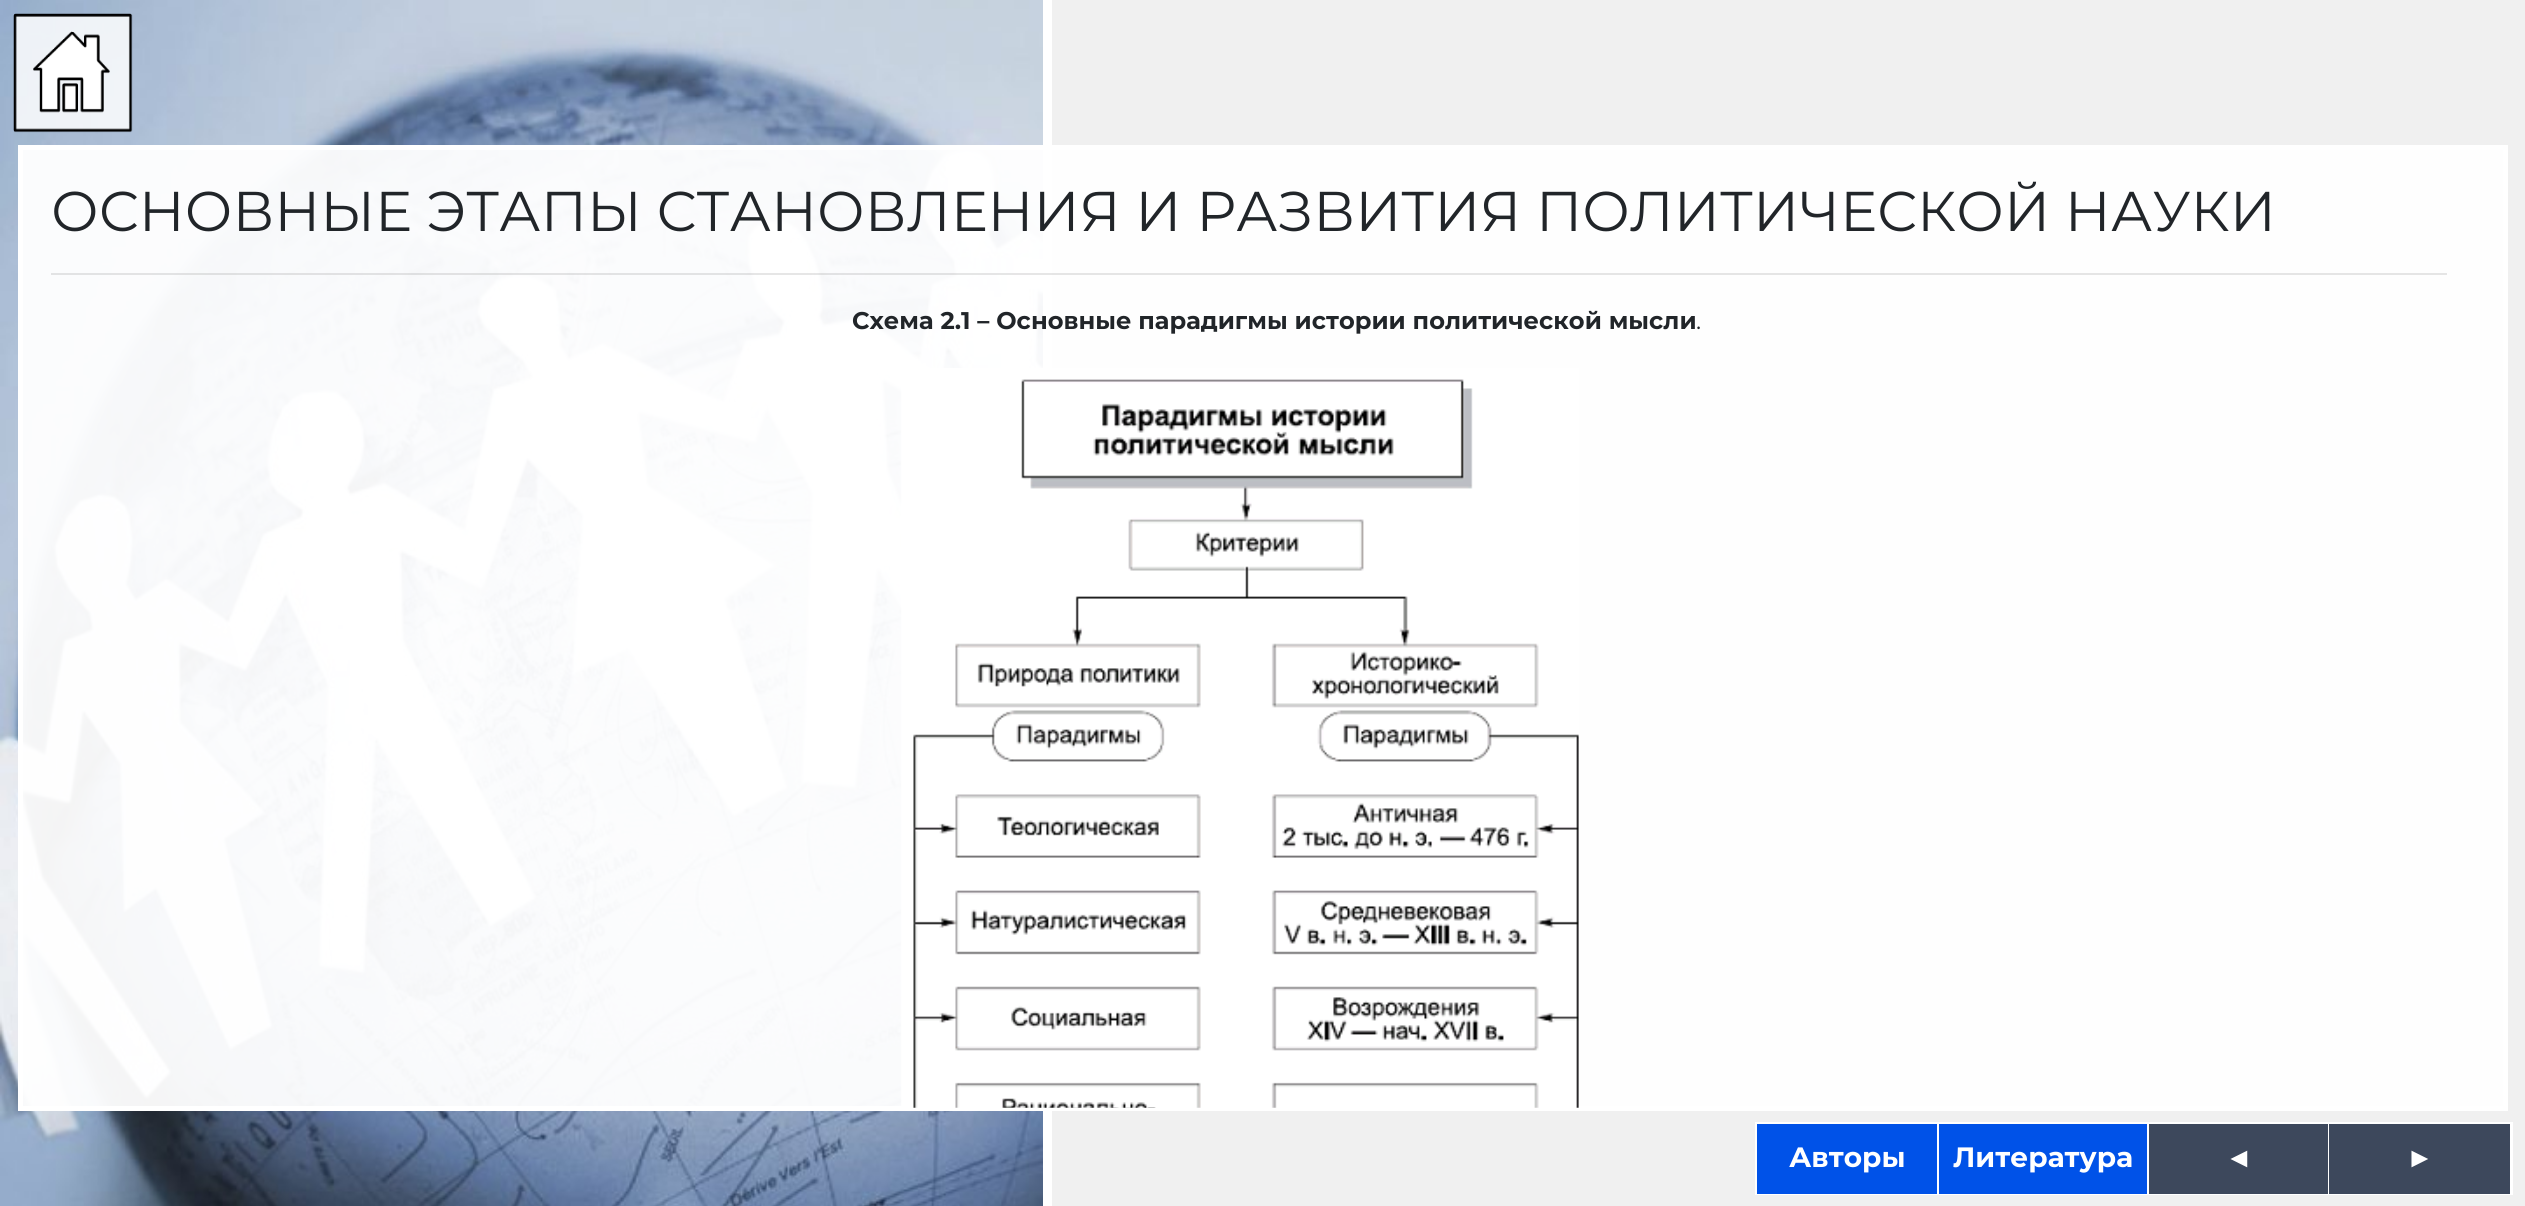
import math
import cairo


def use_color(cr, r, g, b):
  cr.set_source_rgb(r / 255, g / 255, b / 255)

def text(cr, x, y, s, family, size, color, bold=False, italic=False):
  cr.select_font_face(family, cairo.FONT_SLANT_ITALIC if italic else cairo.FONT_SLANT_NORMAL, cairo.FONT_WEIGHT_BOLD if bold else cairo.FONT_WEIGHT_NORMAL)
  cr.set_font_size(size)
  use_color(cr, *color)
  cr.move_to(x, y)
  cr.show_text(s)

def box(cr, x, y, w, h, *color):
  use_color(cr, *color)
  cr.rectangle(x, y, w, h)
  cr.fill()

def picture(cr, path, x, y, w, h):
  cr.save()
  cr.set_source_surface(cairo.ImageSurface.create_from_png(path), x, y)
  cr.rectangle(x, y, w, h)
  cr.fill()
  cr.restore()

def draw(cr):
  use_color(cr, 255, 255, 255)
  cr.paint()
  picture(cr, "img_01.png", 0, 0, 1043, 1206)
  box(cr, 1052, 0, 1473, 1206, 240, 240, 240)
  picture(cr, "img_02.png", 13, 13, 120, 120)
  cr.set_source_rgba(1, 1, 1, 0.95)
  cr.rectangle(20.5, 147.5, 2485, 961)
  cr.fill_preserve()
  use_color(cr, 255, 255, 255)
  cr.set_line_width(5)
  cr.stroke()
  cr.set_source_rgba(0, 0, 0, 0.1)
  cr.rectangle(51, 273, 2396, 2)
  cr.fill()
  picture(cr, "img_03.png", 901, 368, 678, 740)
  cr.rectangle(1756, 1123, 756, 71)
  use_color(cr, 255, 255, 255)
  cr.set_line_width(2)
  cr.stroke()
  box(cr, 1757, 1124, 180, 70, 0, 82, 232)
  box(cr, 1937, 1124, 2, 70, 255, 255, 255)
  box(cr, 1939, 1124, 208, 70, 0, 82, 232)
  box(cr, 2147, 1124, 2, 70, 255, 255, 255)
  box(cr, 2149, 1124, 179, 70, 61, 72, 92)
  box(cr, 2328, 1124, 1, 70, 255, 255, 255)
  box(cr, 2329, 1124, 181, 70, 61, 72, 92)
  box(cr, 2510, 1124, 1, 70, 255, 255, 255)
  text(cr, 51, 231, "ОСНОВНЫЕ ЭТАПЫ СТАНОВЛЕНИЯ И РАЗВИТИЯ ПОЛИТИЧЕСКОЙ НАУКИ", "Montserrat", 56, (33, 37, 41))
  text(cr, 852, 329, "Схема 2.1 – Основные парадигмы истории политической мысли", "Montserrat", 24.15, (33, 37, 41), bold=True)
  text(cr, 1696, 329, ".", "Montserrat", 24.15, (33, 37, 41))
  text(cr, 1789, 1167, "Авторы", "Montserrat", 28, (255, 255, 255), bold=True)
  text(cr, 1953, 1167, "Литература", "Montserrat", 28, (255, 255, 255), bold=True)
  text(cr, 2225, 1167, "◄", "Liberation Serif", 28, (255, 255, 255), bold=True)
  text(cr, 2406, 1167, "►", "Liberation Serif", 28, (255, 255, 255), bold=True)


surface = cairo.ImageSurface(cairo.FORMAT_RGB24, 2525, 1206)
cr = cairo.Context(surface)
options = cairo.FontOptions()
options.set_hint_metrics(cairo.HINT_METRICS_OFF)
options.set_hint_style(cairo.HINT_STYLE_NONE)
cr.set_font_options(options)
cr.set_miter_limit(4)
draw(cr)
surface.write_to_png("out.png")
